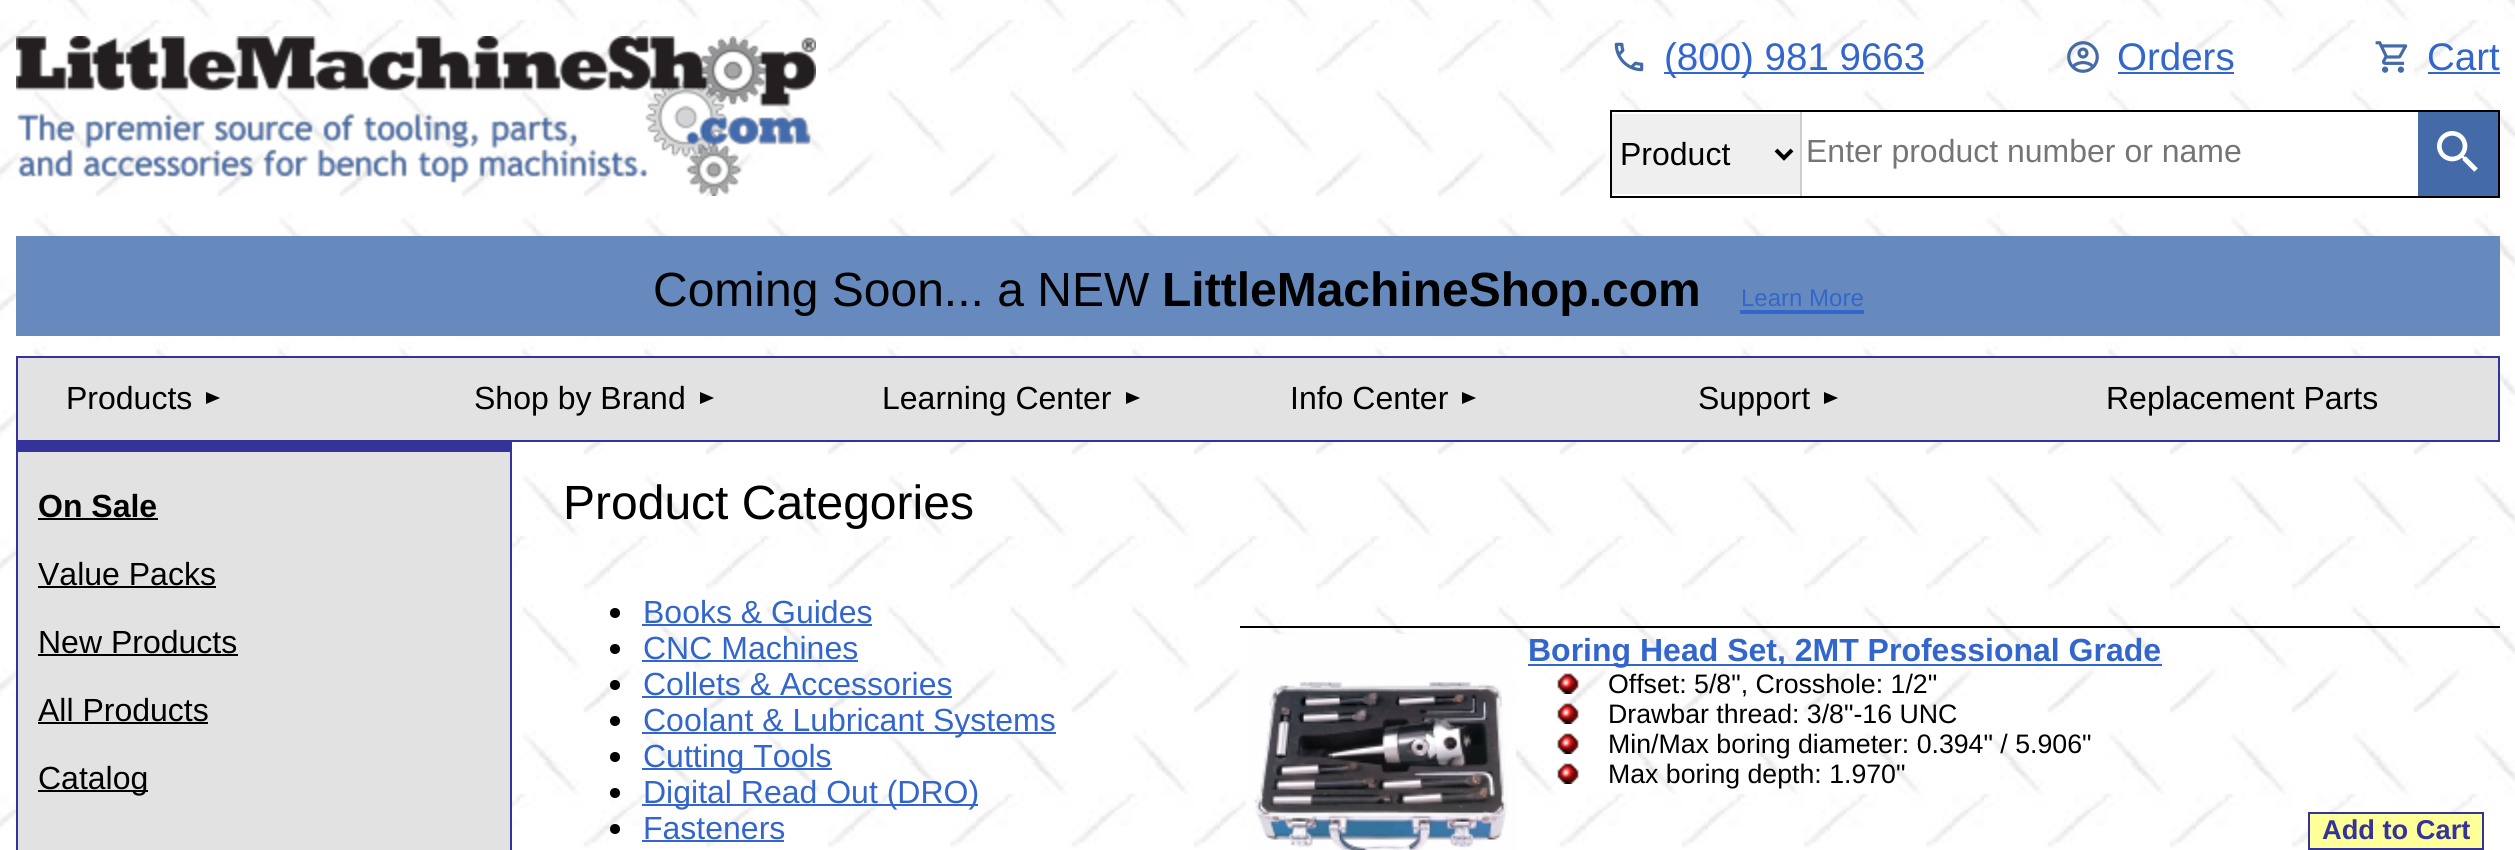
import math
import cairo


def use_color(cr, r, g, b):
  cr.set_source_rgb(r / 255, g / 255, b / 255)

def text(cr, x, y, s, family, size, color, bold=False, italic=False):
  cr.select_font_face(family, cairo.FONT_SLANT_ITALIC if italic else cairo.FONT_SLANT_NORMAL, cairo.FONT_WEIGHT_BOLD if bold else cairo.FONT_WEIGHT_NORMAL)
  cr.set_font_size(size)
  use_color(cr, *color)
  cr.move_to(x, y)
  cr.show_text(s)

def box(cr, x, y, w, h, *color):
  use_color(cr, *color)
  cr.rectangle(x, y, w, h)
  cr.fill()

def picture(cr, path, x, y, w, h):
  cr.save()
  cr.set_source_surface(cairo.ImageSurface.create_from_png(path), x, y)
  cr.rectangle(x, y, w, h)
  cr.fill()
  cr.restore()

def draw(cr):
  use_color(cr, 255, 255, 255)
  cr.paint()
  picture(cr, "img_01.png", 0, 0, 2515, 848)
  picture(cr, "img_02.png", 16, 36, 800, 160)
  picture(cr, "img_03.png", 1614, 42, 30, 30)
  box(cr, 1664, 72, 260, 2, 51, 102, 204)
  picture(cr, "img_04.png", 2067, 41, 32, 32)
  box(cr, 2118, 72, 116, 2, 51, 102, 204)
  picture(cr, "img_05.png", 2375, 41, 33, 32)
  box(cr, 2428, 72, 72, 2, 51, 102, 204)
  cr.rectangle(1611, 111, 888, 86)
  use_color(cr, 0, 0, 0)
  cr.stroke()
  box(cr, 1628, 112, 790, 84, 255, 255, 255)
  box(cr, 1800, 112, 2, 84, 204, 204, 204)
  box(cr, 1612, 114, 188, 80, 239, 239, 239)
  cr.new_path()
  cr.move_to(1776, 150)
  cr.line_to(1784, 158)
  cr.line_to(1792, 150)
  use_color(cr, 0, 0, 0)
  cr.set_line_width(4)
  cr.stroke()
  box(cr, 2418, 112, 80, 84, 68, 107, 168)
  picture(cr, "img_06.png", 2437, 131, 41, 41)
  box(cr, 16, 236, 2484, 100, 102, 138, 190)
  box(cr, 1740, 310, 124, 4, 51, 102, 204)
  use_color(cr, 226, 226, 226)
  cr.rectangle(17, 357, 2482, 84)
  cr.fill_preserve()
  use_color(cr, 51, 51, 153)
  cr.set_line_width(2)
  cr.stroke()
  use_color(cr, 0, 0, 0)
  cr.new_path()
  cr.move_to(206, 404)
  cr.line_to(206, 392)
  cr.line_to(220, 398)
  cr.close_path()
  cr.fill()
  cr.new_path()
  cr.move_to(700, 404)
  cr.line_to(700, 392)
  cr.line_to(714, 398)
  cr.close_path()
  cr.fill()
  cr.new_path()
  cr.move_to(1126, 404)
  cr.line_to(1126, 392)
  cr.line_to(1140, 398)
  cr.close_path()
  cr.fill()
  cr.new_path()
  cr.move_to(1462, 404)
  cr.line_to(1462, 392)
  cr.line_to(1476, 398)
  cr.close_path()
  cr.fill()
  cr.new_path()
  cr.move_to(1824, 404)
  cr.line_to(1824, 392)
  cr.line_to(1838, 398)
  cr.close_path()
  cr.fill()
  box(cr, 18, 452, 492, 398, 226, 226, 226)
  box(cr, 18, 442, 492, 10, 51, 51, 153)
  box(cr, 510, 442, 2, 408, 51, 51, 153)
  box(cr, 16, 442, 2, 408, 51, 51, 153)
  box(cr, 38, 518, 120, 2, 0, 0, 0)
  box(cr, 38, 586, 178, 2, 0, 0, 0)
  box(cr, 38, 654, 200, 2, 0, 0, 0)
  box(cr, 38, 722, 170, 2, 0, 0, 0)
  box(cr, 38, 790, 110, 2, 0, 0, 0)
  cr.arc(615, 613, 5, 0, 2 * math.pi)
  cr.fill()
  box(cr, 642, 624, 230, 2, 51, 102, 204)
  use_color(cr, 0, 0, 0)
  cr.arc(615, 649, 5, 0, 2 * math.pi)
  cr.fill()
  box(cr, 642, 660, 216, 2, 51, 102, 204)
  use_color(cr, 0, 0, 0)
  cr.arc(615, 685, 5, 0, 2 * math.pi)
  cr.fill()
  box(cr, 642, 696, 310, 2, 51, 102, 204)
  use_color(cr, 0, 0, 0)
  cr.arc(615, 721, 5, 0, 2 * math.pi)
  cr.fill()
  box(cr, 642, 732, 414, 2, 51, 102, 204)
  use_color(cr, 0, 0, 0)
  cr.arc(615, 757, 5, 0, 2 * math.pi)
  cr.fill()
  box(cr, 642, 768, 190, 2, 51, 102, 204)
  use_color(cr, 0, 0, 0)
  cr.arc(615, 793, 5, 0, 2 * math.pi)
  cr.fill()
  box(cr, 642, 804, 336, 2, 51, 102, 204)
  use_color(cr, 0, 0, 0)
  cr.arc(615, 829, 5, 0, 2 * math.pi)
  cr.fill()
  box(cr, 642, 840, 142, 2, 51, 102, 204)
  box(cr, 1240, 626, 1260, 2, 0, 0, 0)
  picture(cr, "img_07.png", 1246, 634, 270, 216)
  box(cr, 1528, 664, 634, 2, 51, 102, 204)
  picture(cr, "img_08.png", 1557, 673, 22, 21)
  picture(cr, "img_09.png", 1557, 703, 22, 21)
  picture(cr, "img_10.png", 1557, 733, 22, 21)
  picture(cr, "img_10.png", 1557, 763, 22, 21)
  use_color(cr, 255, 255, 153)
  cr.rectangle(2309, 813, 174, 36)
  cr.fill_preserve()
  use_color(cr, 51, 51, 153)
  cr.stroke()
  text(cr, 1664, 70, "(800) 981 9663", "Liberation Sans", 38.5, (51, 102, 204))
  text(cr, 2117, 70, "Orders", "Liberation Sans", 38.5, (51, 102, 204))
  text(cr, 2427, 70, "Cart", "Liberation Sans", 38.5, (51, 102, 204))
  text(cr, 1620, 165, "Product", "Liberation Sans", 32, (0, 0, 0))
  text(cr, 1806, 162, "Enter product number or name", "Liberation Sans", 32, (117, 117, 117))
  text(cr, 653, 306, "Coming Soon... a NEW", "Liberation Sans", 48, (0, 0, 0))
  text(cr, 1162, 306, "LittleMachineShop.com", "Liberation Sans", 48, (0, 0, 0), bold=True)
  text(cr, 1741, 306, "Learn More", "Liberation Sans", 24, (51, 102, 204))
  text(cr, 66, 409, "Products", "Liberation Sans", 32, (0, 0, 0))
  text(cr, 474, 409, "Shop by Brand", "Liberation Sans", 32, (0, 0, 0))
  text(cr, 882, 409, "Learning Center", "Liberation Sans", 32, (0, 0, 0))
  text(cr, 1290, 409, "Info Center", "Liberation Sans", 32, (0, 0, 0))
  text(cr, 1698, 409, "Support", "Liberation Sans", 32, (0, 0, 0))
  text(cr, 2106, 409, "Replacement Parts", "Liberation Sans", 32, (0, 0, 0))
  text(cr, 38, 517, "On Sale", "Liberation Sans", 32, (0, 0, 0), bold=True)
  text(cr, 38, 585, "Value Packs", "Liberation Sans", 32, (0, 0, 0))
  text(cr, 38, 653, "New Products", "Liberation Sans", 32, (0, 0, 0))
  text(cr, 38, 721, "All Products", "Liberation Sans", 32, (0, 0, 0))
  text(cr, 38, 789, "Catalog", "Liberation Sans", 32, (0, 0, 0))
  text(cr, 563, 519, "Product Categories", "Liberation Sans", 48, (0, 0, 0))
  text(cr, 643, 623, "Books & Guides", "Liberation Sans", 32, (51, 102, 204))
  text(cr, 643, 659, "CNC Machines", "Liberation Sans", 32, (51, 102, 204))
  text(cr, 643, 695, "Collets & Accessories", "Liberation Sans", 32, (51, 102, 204))
  text(cr, 643, 731, "Coolant & Lubricant Systems", "Liberation Sans", 32, (51, 102, 204))
  text(cr, 643, 767, "Cutting Tools", "Liberation Sans", 32, (51, 102, 204))
  text(cr, 643, 803, "Digital Read Out (DRO)", "Liberation Sans", 32, (51, 102, 204))
  text(cr, 643, 839, "Fasteners", "Liberation Sans", 32, (51, 102, 204))
  text(cr, 1528, 661, "Boring Head Set, 2MT Professional Grade", "Liberation Sans", 32, (51, 102, 204), bold=True)
  text(cr, 1608, 693, "Offset: 5/8\", Crosshole: 1/2\"", "Liberation Sans", 26.7, (0, 0, 0))
  text(cr, 1608, 723, "Drawbar thread: 3/8\"-16 UNC", "Liberation Sans", 26.7, (0, 0, 0))
  text(cr, 1608, 753, "Min/Max boring diameter: 0.394\" / 5.906\"", "Liberation Sans", 26.7, (0, 0, 0))
  text(cr, 1608, 783, "Max boring depth: 1.970\"", "Liberation Sans", 26.7, (0, 0, 0))
  text(cr, 2322, 839, "Add to Cart", "Liberation Sans", 27.25, (51, 51, 153), bold=True)


surface = cairo.ImageSurface(cairo.FORMAT_RGB24, 2515, 850)
cr = cairo.Context(surface)
options = cairo.FontOptions()
options.set_hint_metrics(cairo.HINT_METRICS_OFF)
options.set_hint_style(cairo.HINT_STYLE_NONE)
cr.set_font_options(options)
cr.set_miter_limit(4)
draw(cr)
surface.write_to_png("out.png")
